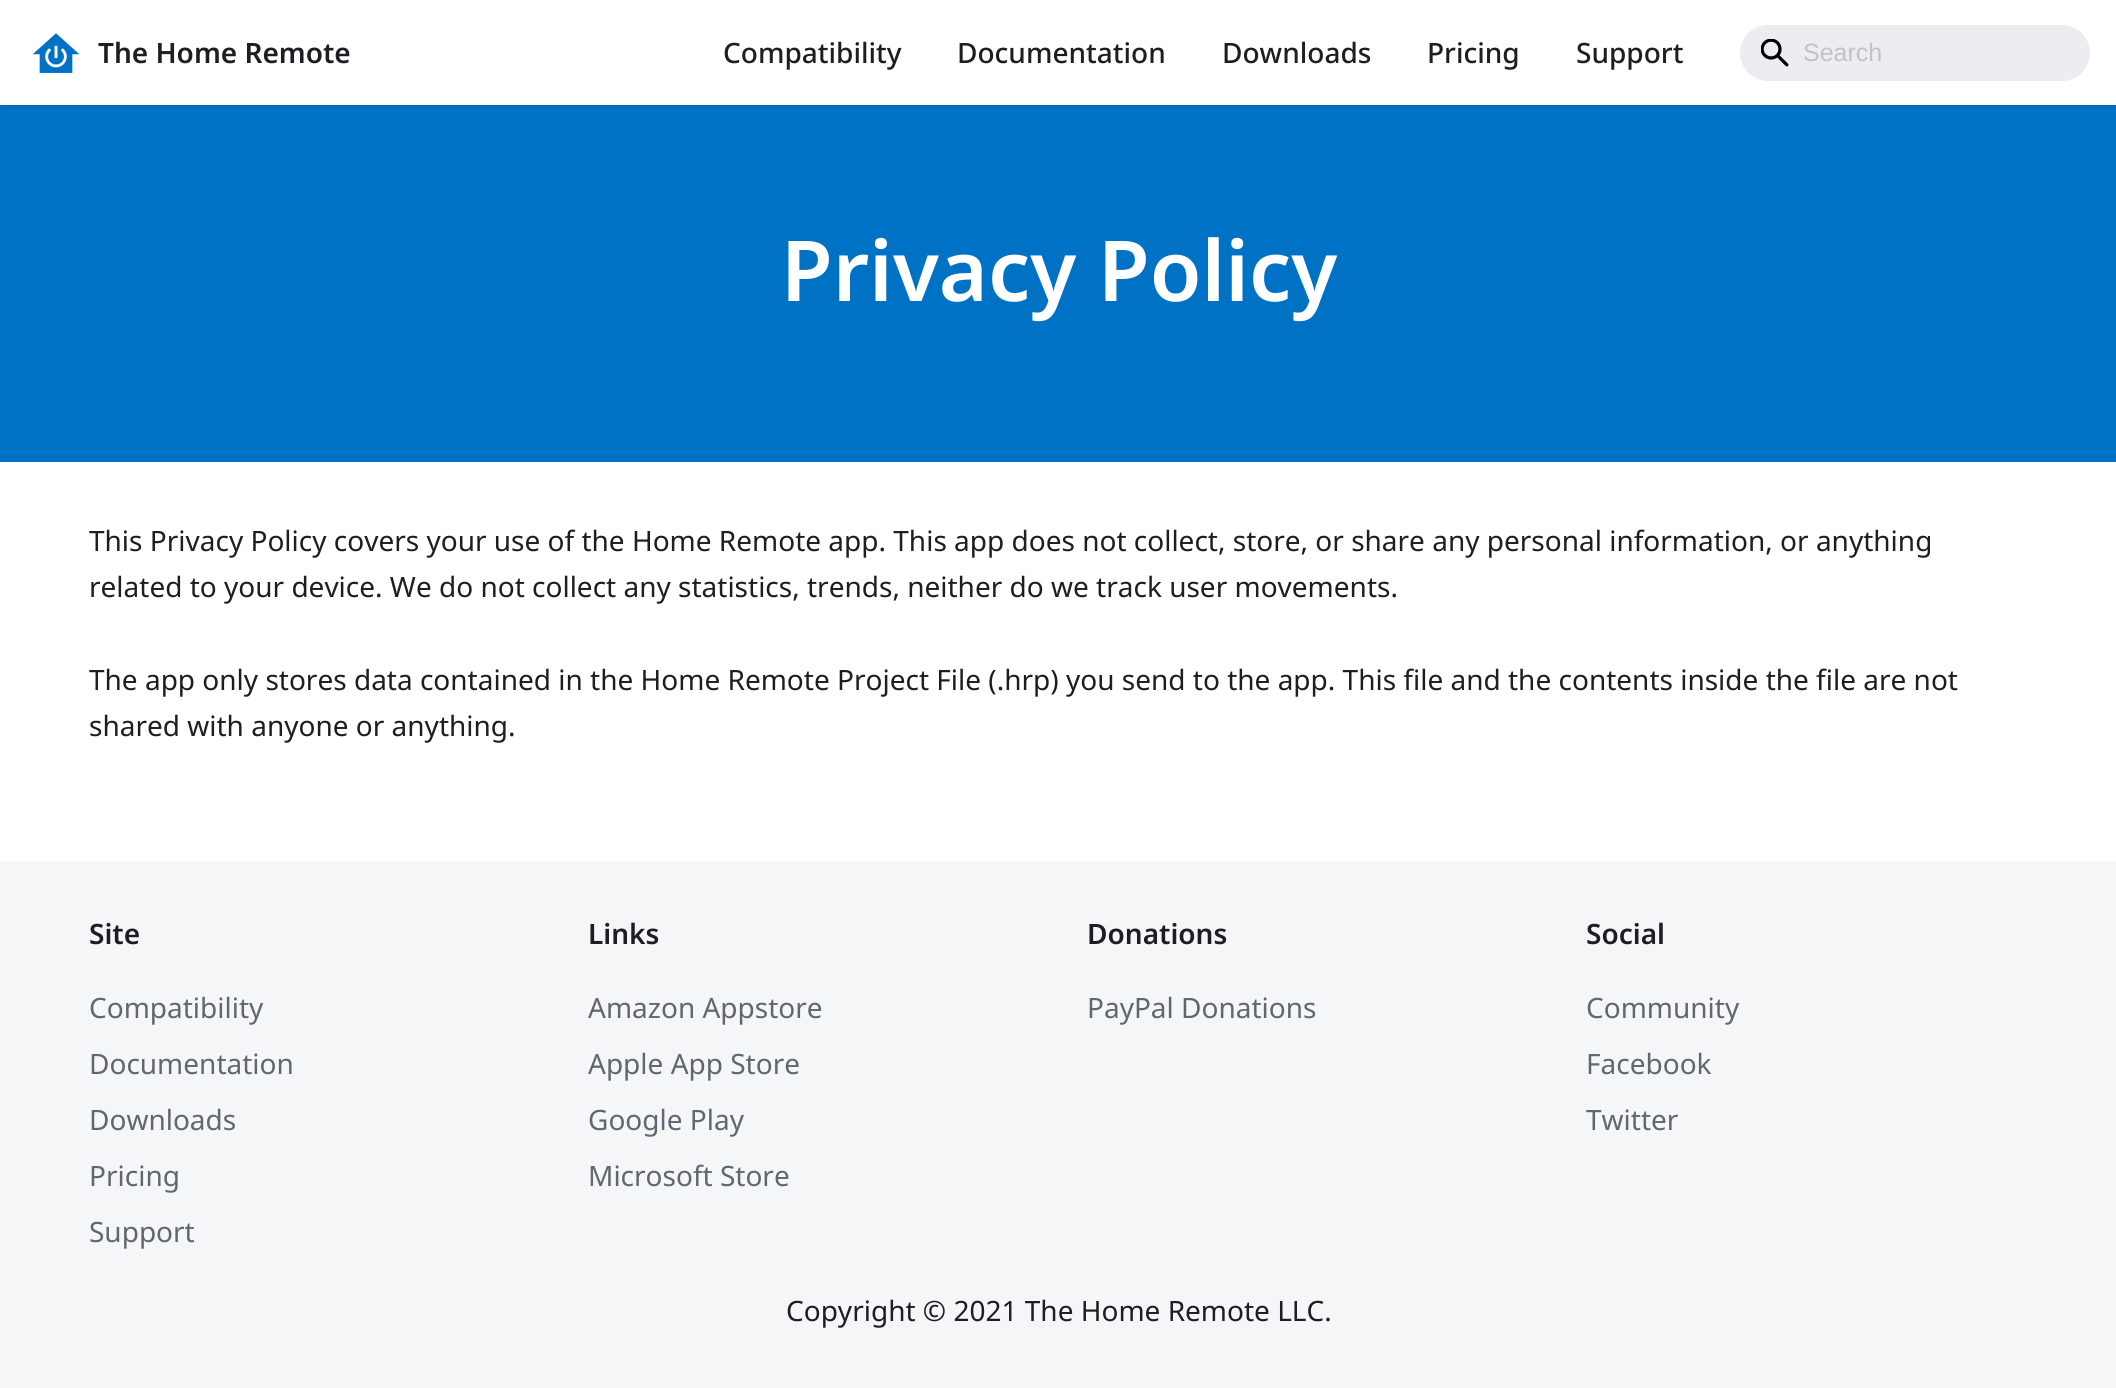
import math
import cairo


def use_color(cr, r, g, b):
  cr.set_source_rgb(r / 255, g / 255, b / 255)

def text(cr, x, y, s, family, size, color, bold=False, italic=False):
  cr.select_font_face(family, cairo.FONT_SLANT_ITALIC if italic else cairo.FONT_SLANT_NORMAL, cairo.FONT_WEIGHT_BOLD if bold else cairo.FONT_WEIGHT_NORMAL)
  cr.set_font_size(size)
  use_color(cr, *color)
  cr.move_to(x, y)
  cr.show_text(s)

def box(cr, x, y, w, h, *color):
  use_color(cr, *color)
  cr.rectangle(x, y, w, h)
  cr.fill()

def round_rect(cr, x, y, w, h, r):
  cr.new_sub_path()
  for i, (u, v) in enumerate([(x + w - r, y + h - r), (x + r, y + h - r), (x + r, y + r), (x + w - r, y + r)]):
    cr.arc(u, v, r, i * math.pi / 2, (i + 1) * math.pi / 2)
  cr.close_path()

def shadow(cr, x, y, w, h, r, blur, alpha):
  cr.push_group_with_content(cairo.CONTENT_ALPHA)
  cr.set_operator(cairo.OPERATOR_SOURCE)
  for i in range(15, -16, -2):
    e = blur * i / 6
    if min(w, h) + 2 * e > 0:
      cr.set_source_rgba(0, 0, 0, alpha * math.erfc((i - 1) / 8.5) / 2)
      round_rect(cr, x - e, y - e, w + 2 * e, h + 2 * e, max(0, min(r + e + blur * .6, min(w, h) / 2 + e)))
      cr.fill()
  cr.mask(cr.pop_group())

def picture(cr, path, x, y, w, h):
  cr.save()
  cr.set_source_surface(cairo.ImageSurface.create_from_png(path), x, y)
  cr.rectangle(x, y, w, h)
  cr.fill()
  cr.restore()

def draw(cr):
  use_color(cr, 255, 255, 255)
  cr.paint()
  box(cr, 0, 105, 2116, 357, 0, 114, 198)
  cr.save()
  cr.rectangle(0, 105, 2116, 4)
  cr.clip()
  use_color(cr, 0, 0, 0)
  shadow(cr, 0, 2, 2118, 105, 0, 2, 0.1)
  cr.restore()
  picture(cr, "img_01.png", 32, 33, 48, 40)
  use_color(cr, 235, 237, 240)
  round_rect(cr, 1740, 25, 350, 56, 28)
  cr.fill()
  picture(cr, "img_02.png", 1761, 39, 28, 28)
  box(cr, 0, 861, 2116, 527, 245, 246, 247)
  text(cr, 98, 63, "The Home Remote", "Noto Sans SemiBold", 28, (28, 30, 33))
  text(cr, 723, 63, "Compatibility", "Noto Sans Medium", 28, (28, 30, 33))
  text(cr, 957, 63, "Documentation", "Noto Sans Medium", 28, (28, 30, 33))
  text(cr, 1222, 63, "Downloads", "Noto Sans Medium", 28, (28, 30, 33))
  text(cr, 1427, 63, "Pricing", "Noto Sans Medium", 28, (28, 30, 33))
  text(cr, 1576, 63, "Support", "Noto Sans Medium", 28, (28, 30, 33))
  text(cr, 1803, 61, "Search", "Liberation Sans", 25, (190, 195, 201))
  text(cr, 781, 301, "Privacy Policy", "Noto Sans SemiBold", 84, (255, 255, 255))
  text(cr, 89, 551, "This Privacy Policy covers your use of the Home Remote app. This app does not collect, store, or share any personal information, or anything", "Noto Sans", 28, (28, 30, 33))
  text(cr, 89, 597, "related to your device. We do not collect any statistics, trends, neither do we track user movements.", "Noto Sans", 28, (28, 30, 33))
  text(cr, 89, 690, "The app only stores data contained in the Home Remote Project File (.hrp) you send to the app. This file and the contents inside the file are not", "Noto Sans", 28, (28, 30, 33))
  text(cr, 89, 736, "shared with anyone or anything.", "Noto Sans", 28, (28, 30, 33))
  text(cr, 89, 944, "Site", "Noto Sans SemiBold", 28, (28, 30, 33))
  text(cr, 89, 1018, "Compatibility", "Noto Sans", 28, (96, 103, 112))
  text(cr, 89, 1074, "Documentation", "Noto Sans", 28, (96, 103, 112))
  text(cr, 89, 1130, "Downloads", "Noto Sans", 28, (96, 103, 112))
  text(cr, 89, 1186, "Pricing", "Noto Sans", 28, (96, 103, 112))
  text(cr, 89, 1242, "Support", "Noto Sans", 28, (96, 103, 112))
  text(cr, 588, 944, "Links", "Noto Sans SemiBold", 28, (28, 30, 33))
  text(cr, 588, 1018, "Amazon Appstore", "Noto Sans", 28, (96, 103, 112))
  text(cr, 588, 1074, "Apple App Store", "Noto Sans", 28, (96, 103, 112))
  text(cr, 588, 1130, "Google Play", "Noto Sans", 28, (96, 103, 112))
  text(cr, 588, 1186, "Microsoft Store", "Noto Sans", 28, (96, 103, 112))
  text(cr, 1087, 944, "Donations", "Noto Sans SemiBold", 28, (28, 30, 33))
  text(cr, 1087, 1018, "PayPal Donations", "Noto Sans", 28, (96, 103, 112))
  text(cr, 1586, 944, "Social", "Noto Sans SemiBold", 28, (28, 30, 33))
  text(cr, 1586, 1018, "Community", "Noto Sans", 28, (96, 103, 112))
  text(cr, 1586, 1074, "Facebook", "Noto Sans", 28, (96, 103, 112))
  text(cr, 1586, 1130, "Twitter", "Noto Sans", 28, (96, 103, 112))
  text(cr, 786, 1321, "Copyright © 2021 The Home Remote LLC.", "Noto Sans", 28, (28, 30, 33))


surface = cairo.ImageSurface(cairo.FORMAT_RGB24, 2116, 1388)
cr = cairo.Context(surface)
options = cairo.FontOptions()
options.set_hint_metrics(cairo.HINT_METRICS_OFF)
options.set_hint_style(cairo.HINT_STYLE_NONE)
cr.set_font_options(options)
cr.set_miter_limit(4)
draw(cr)
surface.write_to_png("out.png")
